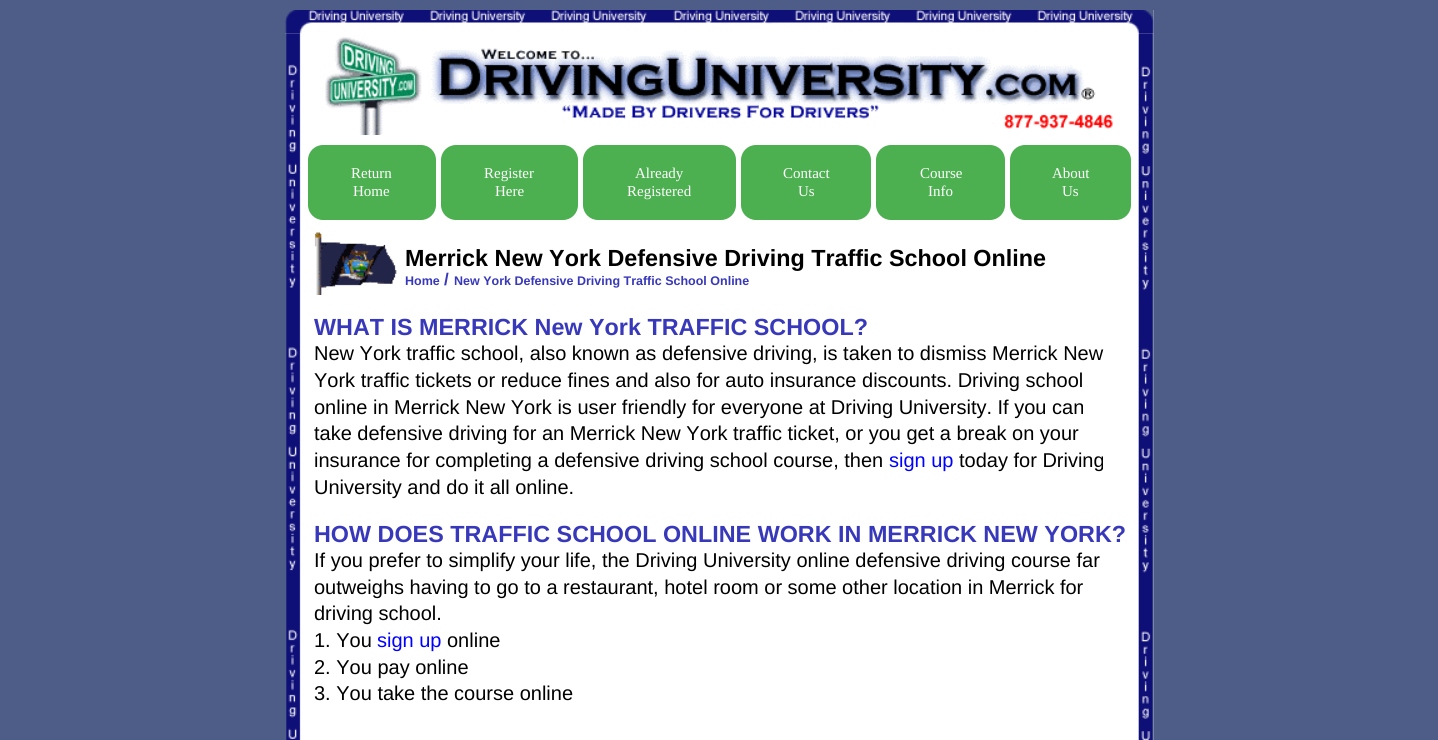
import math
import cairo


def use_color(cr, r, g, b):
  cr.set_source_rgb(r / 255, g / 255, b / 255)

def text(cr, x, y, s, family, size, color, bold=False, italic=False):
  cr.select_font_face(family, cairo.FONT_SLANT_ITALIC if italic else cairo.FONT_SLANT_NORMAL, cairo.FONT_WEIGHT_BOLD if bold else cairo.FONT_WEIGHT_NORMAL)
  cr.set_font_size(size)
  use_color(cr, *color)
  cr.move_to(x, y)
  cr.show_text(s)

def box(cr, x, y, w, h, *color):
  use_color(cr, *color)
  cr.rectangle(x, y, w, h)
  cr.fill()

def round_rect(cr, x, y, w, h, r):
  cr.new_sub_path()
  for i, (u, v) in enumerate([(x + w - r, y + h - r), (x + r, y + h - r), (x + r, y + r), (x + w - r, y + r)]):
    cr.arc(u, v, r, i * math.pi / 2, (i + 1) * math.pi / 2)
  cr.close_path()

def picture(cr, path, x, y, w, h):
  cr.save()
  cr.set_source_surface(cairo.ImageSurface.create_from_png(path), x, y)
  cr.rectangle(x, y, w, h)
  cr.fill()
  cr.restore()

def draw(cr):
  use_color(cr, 77, 93, 136)
  cr.paint()
  box(cr, 285, 10, 869, 730, 255, 255, 255)
  picture(cr, "img_02.png", 285, 33, 16, 707)
  picture(cr, "img_05.png", 1138, 33, 16, 707)
  picture(cr, "img_01.png", 285, 10, 869, 24)
  picture(cr, "img_03.png", 325, 37, 788, 98)
  use_color(cr, 76, 175, 80)
  round_rect(cr, 308, 145, 128, 75, 15)
  cr.fill()
  round_rect(cr, 441, 145, 137, 75, 15)
  cr.fill()
  round_rect(cr, 583, 145, 153, 75, 15)
  cr.fill()
  round_rect(cr, 741, 145, 130, 75, 15)
  cr.fill()
  round_rect(cr, 876, 145, 129, 75, 15)
  cr.fill()
  round_rect(cr, 1010, 145, 121, 75, 15)
  cr.fill()
  picture(cr, "img_04.png", 314, 232, 83, 63)
  text(cr, 351, 178, "Return", "Liberation Serif", 15, (255, 255, 255))
  text(cr, 353, 196, "Home", "Liberation Serif", 15, (255, 255, 255))
  text(cr, 484, 178, "Register", "Liberation Serif", 15, (255, 255, 255))
  text(cr, 495, 196, "Here", "Liberation Serif", 15, (255, 255, 255))
  text(cr, 635, 178, "Already", "Liberation Serif", 15, (255, 255, 255))
  text(cr, 627, 196, "Registered", "Liberation Serif", 15, (255, 255, 255))
  text(cr, 783, 178, "Contact", "Liberation Serif", 15, (255, 255, 255))
  text(cr, 798, 196, "Us", "Liberation Serif", 15, (255, 255, 255))
  text(cr, 920, 178, "Course", "Liberation Serif", 15, (255, 255, 255))
  text(cr, 928, 196, "Info", "Liberation Serif", 15, (255, 255, 255))
  text(cr, 1052, 178, "About", "Liberation Serif", 15, (255, 255, 255))
  text(cr, 1062, 196, "Us", "Liberation Serif", 15, (255, 255, 255))
  text(cr, 405, 266, "Merrick New York Defensive Driving Traffic School Online", "Liberation Sans", 23.35, (0, 0, 0), bold=True)
  text(cr, 405, 285, "Home", "Liberation Sans", 12.5, (56, 56, 186), bold=True)
  text(cr, 444, 285, "/", "Liberation Sans", 17, (56, 56, 186), bold=True)
  text(cr, 454, 285, "New York Defensive Driving Traffic School Online", "Liberation Sans", 12.5, (56, 56, 186), bold=True)
  text(cr, 314, 335, "WHAT IS MERRICK New York TRAFFIC SCHOOL?", "Liberation Sans", 23.35, (56, 56, 186), bold=True)
  text(cr, 314, 360, "New York traffic school, also known as defensive driving, is taken to dismiss Merrick New", "Liberation Sans", 20, (0, 0, 0))
  text(cr, 314, 387, "York traffic tickets or reduce fines and also for auto insurance discounts. Driving school", "Liberation Sans", 20, (0, 0, 0))
  text(cr, 314, 414, "online in Merrick New York is user friendly for everyone at Driving University. If you can", "Liberation Sans", 20, (0, 0, 0))
  text(cr, 314, 440, "take defensive driving for an Merrick New York traffic ticket, or you get a break on your", "Liberation Sans", 20, (0, 0, 0))
  text(cr, 314, 467, "insurance for completing a defensive driving school course, then", "Liberation Sans", 20, (0, 0, 0))
  text(cr, 889, 467, "sign up", "Liberation Sans", 20, (0, 0, 255))
  text(cr, 959, 467, "today for Driving", "Liberation Sans", 20, (0, 0, 0))
  text(cr, 314, 494, "University and do it all online.", "Liberation Sans", 20, (0, 0, 0))
  text(cr, 314, 542, "HOW DOES TRAFFIC SCHOOL ONLINE WORK IN MERRICK NEW YORK?", "Liberation Sans", 23.35, (56, 56, 186), bold=True)
  text(cr, 314, 567, "If you prefer to simplify your life, the Driving University online defensive driving course far", "Liberation Sans", 20, (0, 0, 0))
  text(cr, 314, 594, "outweighs having to go to a restaurant, hotel room or some other location in Merrick for", "Liberation Sans", 20, (0, 0, 0))
  text(cr, 314, 620, "driving school.", "Liberation Sans", 20, (0, 0, 0))
  text(cr, 314, 647, "1. You", "Liberation Sans", 20, (0, 0, 0))
  text(cr, 377, 647, "sign up", "Liberation Sans", 20, (0, 0, 255))
  text(cr, 447, 647, "online", "Liberation Sans", 20, (0, 0, 0))
  text(cr, 314, 674, "2. You pay online", "Liberation Sans", 20, (0, 0, 0))
  text(cr, 314, 700, "3. You take the course online", "Liberation Sans", 20, (0, 0, 0))


surface = cairo.ImageSurface(cairo.FORMAT_RGB24, 1438, 740)
cr = cairo.Context(surface)
options = cairo.FontOptions()
options.set_hint_metrics(cairo.HINT_METRICS_OFF)
options.set_hint_style(cairo.HINT_STYLE_NONE)
cr.set_font_options(options)
cr.set_miter_limit(4)
draw(cr)
surface.write_to_png("out.png")
